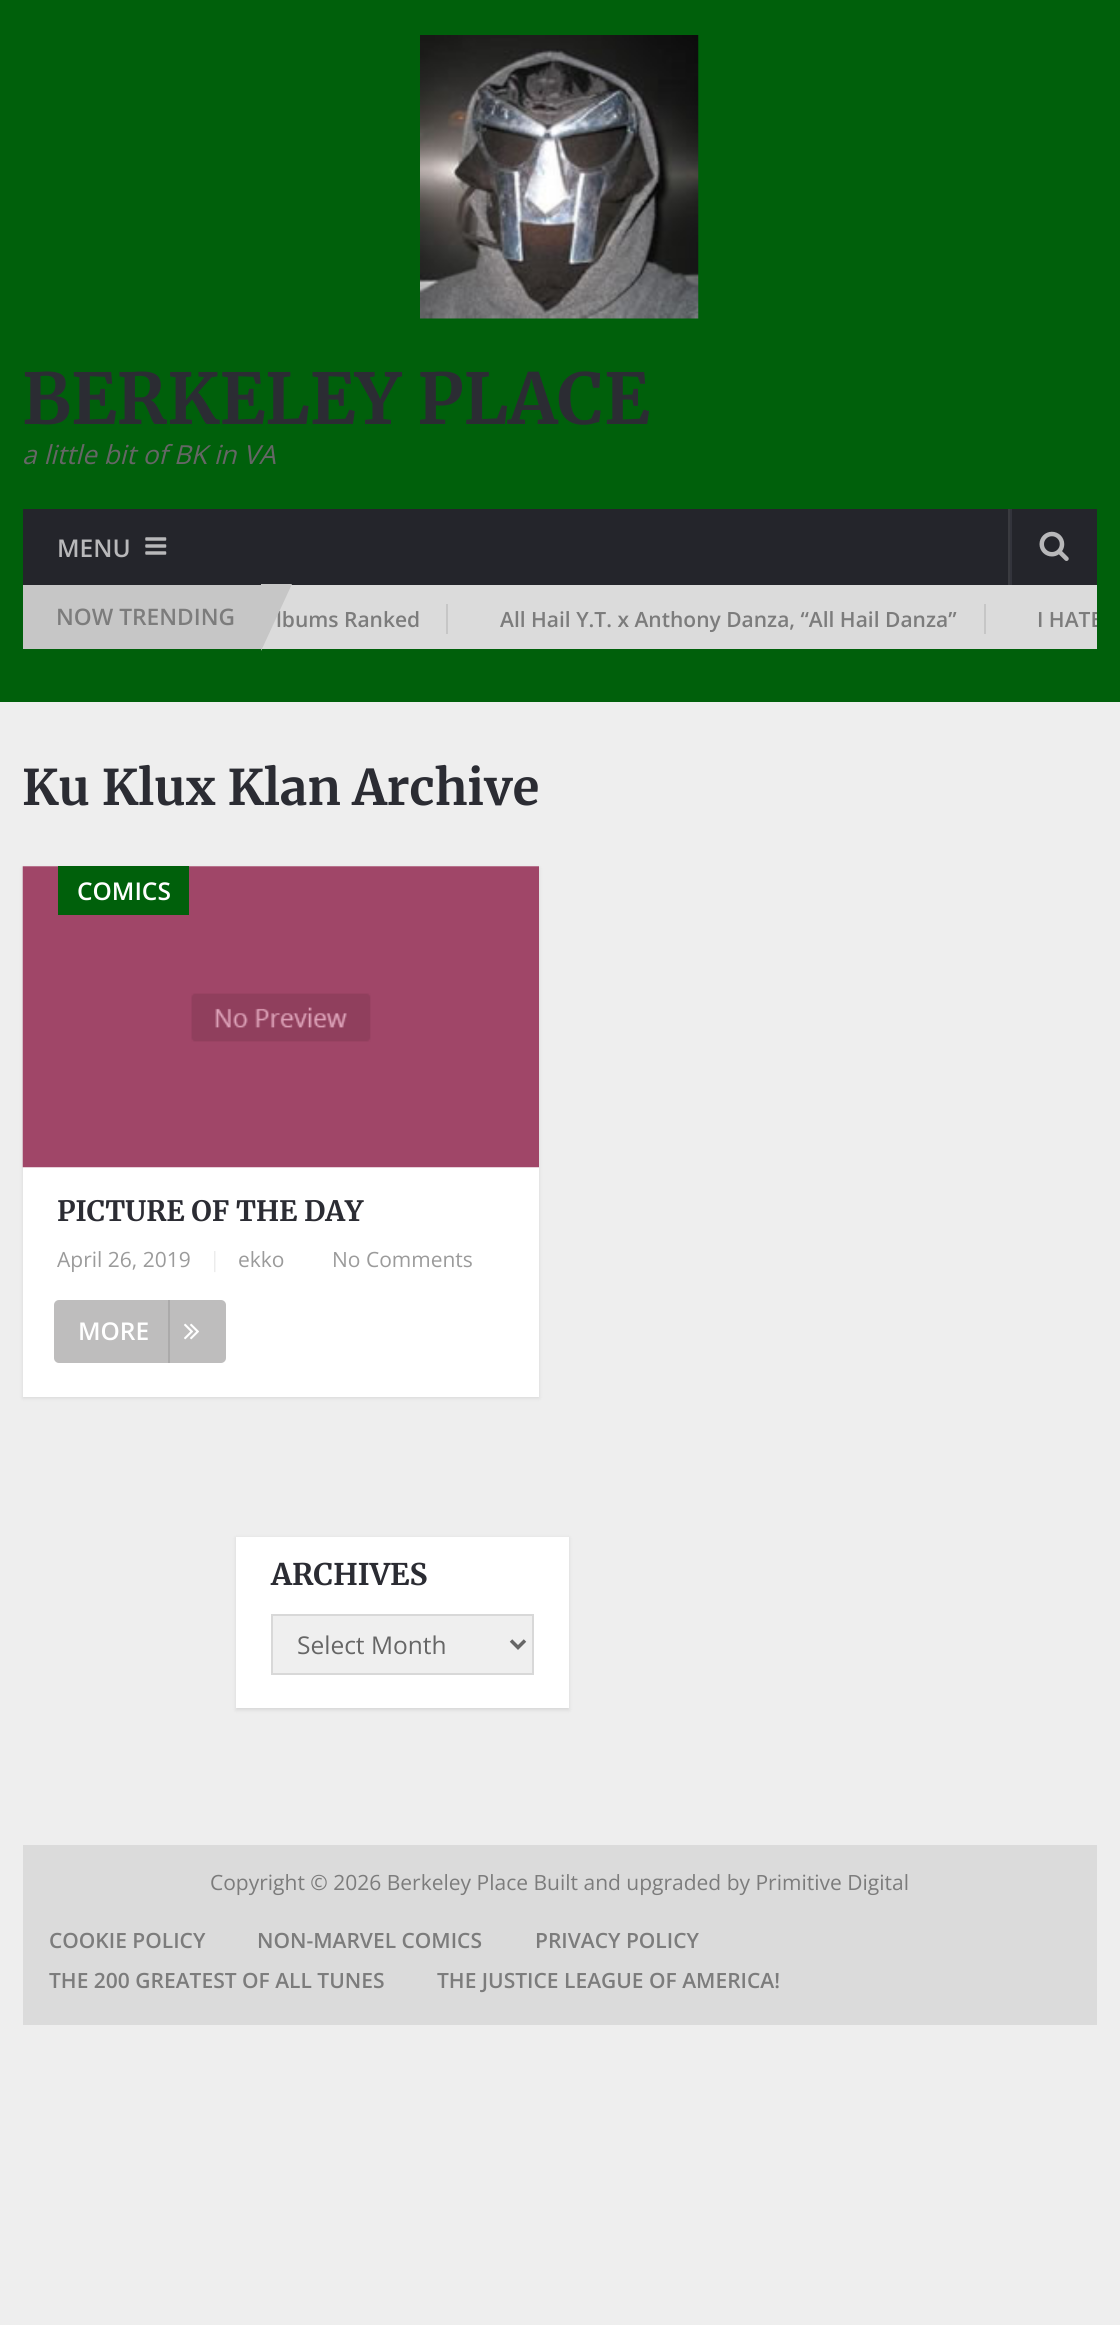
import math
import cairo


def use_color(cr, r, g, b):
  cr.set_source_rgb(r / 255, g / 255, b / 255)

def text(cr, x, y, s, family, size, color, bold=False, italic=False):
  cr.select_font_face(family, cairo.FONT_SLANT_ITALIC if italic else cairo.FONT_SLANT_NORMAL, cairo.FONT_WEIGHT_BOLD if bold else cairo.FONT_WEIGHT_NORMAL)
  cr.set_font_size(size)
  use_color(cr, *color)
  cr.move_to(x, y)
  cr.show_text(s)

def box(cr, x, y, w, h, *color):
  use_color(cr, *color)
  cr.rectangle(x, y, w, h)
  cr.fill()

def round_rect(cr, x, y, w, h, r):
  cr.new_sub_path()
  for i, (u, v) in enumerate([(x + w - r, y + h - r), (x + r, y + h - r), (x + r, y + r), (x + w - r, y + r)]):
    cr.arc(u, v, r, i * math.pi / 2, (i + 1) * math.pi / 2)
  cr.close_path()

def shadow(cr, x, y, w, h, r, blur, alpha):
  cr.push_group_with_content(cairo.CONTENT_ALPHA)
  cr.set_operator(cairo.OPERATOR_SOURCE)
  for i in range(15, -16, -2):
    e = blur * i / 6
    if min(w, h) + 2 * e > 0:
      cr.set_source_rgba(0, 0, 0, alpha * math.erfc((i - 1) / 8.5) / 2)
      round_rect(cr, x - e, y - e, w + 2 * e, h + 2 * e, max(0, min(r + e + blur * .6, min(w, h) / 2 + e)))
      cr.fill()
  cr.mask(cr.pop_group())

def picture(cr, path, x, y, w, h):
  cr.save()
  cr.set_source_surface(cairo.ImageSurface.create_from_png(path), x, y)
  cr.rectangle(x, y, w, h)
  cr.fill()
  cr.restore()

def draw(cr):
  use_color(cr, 238, 238, 238)
  cr.paint()
  box(cr, 0, 0, 1120, 702, 0, 96, 11)
  picture(cr, "img_01.png", 420, 35, 279, 284)
  box(cr, 23, 509, 1074, 76, 36, 37, 43)
  picture(cr, "img_02.png", 145, 537, 22, 18)
  box(cr, 1008, 509, 2, 76, 58, 59, 64)
  box(cr, 1010, 509, 2, 76, 51, 52, 60)
  picture(cr, "img_03.png", 1039, 531, 30, 30)
  box(cr, 262, 585, 835, 64, 219, 219, 219)
  box(cr, 23, 585, 238, 64, 198, 198, 198)
  box(cr, 446, 604, 2, 30, 198, 198, 198)
  box(cr, 984, 604, 2, 30, 198, 198, 198)
  use_color(cr, 0, 0, 0)
  shadow(cr, 23, 868, 516, 530, 0, 2, 0.1)
  box(cr, 23, 866, 516, 531, 255, 255, 255)
  picture(cr, "img_04.png", 22, 866, 517, 302)
  box(cr, 58, 866, 131, 49, 0, 96, 11)
  use_color(cr, 190, 189, 189)
  round_rect(cr, 54, 1300, 172, 63, 5)
  cr.fill()
  box(cr, 168, 1300, 2, 63, 171, 170, 170)
  picture(cr, "img_05.png", 184, 1323, 15, 17)
  use_color(cr, 0, 0, 0)
  shadow(cr, 236, 1538, 333, 172, 0, 2, 0.1)
  box(cr, 236, 1537, 333, 171, 255, 255, 255)
  use_color(cr, 239, 239, 239)
  cr.rectangle(272, 1615, 261, 59)
  cr.fill_preserve()
  use_color(cr, 216, 216, 216)
  cr.stroke()
  cr.new_path()
  cr.move_to(511, 1640.5)
  cr.line_to(518, 1647.5)
  cr.line_to(525, 1640.5)
  use_color(cr, 102, 102, 102)
  cr.set_line_width(3.5)
  cr.stroke()
  box(cr, 23, 1845, 1074, 180, 219, 219, 219)
  text(cr, 22, 424, "BERKELEY PLACE", "Merriweather Light", 70, (43, 44, 51))
  text(cr, 22, 464, "a little bit of BK in VA", "Open Sans", 26.25, (102, 102, 102), italic=True)
  text(cr, 57, 557, "MENU", "Open Sans SemiBold", 24.5, (184, 184, 186))
  text(cr, 56, 625, "NOW TRENDING", "Open Sans SemiBold", 22.75, (124, 124, 124))
  text(cr, 276, 627, "lbums Ranked", "Open Sans SemiBold", 21, (124, 124, 124))
  use_color(cr, 198, 198, 198)
  cr.new_path()
  cr.move_to(261, 584)
  cr.line_to(292, 584)
  cr.line_to(261, 651)
  cr.close_path()
  cr.fill()
  text(cr, 500, 627, "All Hail Y.T. x Anthony Danza, “All Hail Danza”", "Open Sans SemiBold", 21, (124, 124, 124))
  cr.save()
  cr.rectangle(23, 597, 1074, 42)
  cr.clip()
  text(cr, 1037, 627, "I HATE", "Open Sans SemiBold", 21, (124, 124, 124))
  cr.restore()
  text(cr, 22, 805, "Ku Klux Klan Archive", "Merriweather Light", 49, (43, 44, 51))
  text(cr, 77, 900, "COMICS", "Open Sans SemiBold", 24.5, (255, 255, 255))
  text(cr, 57, 1221, "PICTURE OF THE DAY", "Merriweather Light", 28, (43, 44, 51))
  text(cr, 57, 1267, "April 26, 2019", "Open Sans", 21, (155, 155, 155))
  text(cr, 209, 1267, "|", "Open Sans", 21, (235, 235, 235))
  text(cr, 238, 1267, "ekko", "Open Sans", 21, (155, 155, 155))
  text(cr, 332, 1267, "No Comments", "Open Sans", 21, (155, 155, 155))
  text(cr, 78, 1340, "MORE", "Open Sans SemiBold", 24.5, (255, 255, 255))
  text(cr, 271, 1585, "ARCHIVES", "Merriweather Light", 29.75, (43, 44, 51))
  text(cr, 297, 1654, "Select Month", "Open Sans", 24.5, (102, 102, 102))
  text(cr, 210, 1890, "Copyright © 2026 Berkeley Place Built and upgraded by Primitive Digital", "Open Sans", 21, (124, 124, 124))
  text(cr, 49, 1948, "COOKIE POLICY", "Open Sans SemiBold", 21, (124, 124, 124))
  text(cr, 257, 1948, "NON-MARVEL COMICS", "Open Sans SemiBold", 21, (124, 124, 124))
  text(cr, 535, 1948, "PRIVACY POLICY", "Open Sans SemiBold", 21, (124, 124, 124))
  text(cr, 49, 1988, "THE 200 GREATEST OF ALL TUNES", "Open Sans SemiBold", 21, (124, 124, 124))
  text(cr, 437, 1988, "THE JUSTICE LEAGUE OF AMERICA!", "Open Sans SemiBold", 21, (124, 124, 124))


surface = cairo.ImageSurface(cairo.FORMAT_RGB24, 1120, 2325)
cr = cairo.Context(surface)
options = cairo.FontOptions()
options.set_hint_metrics(cairo.HINT_METRICS_OFF)
options.set_hint_style(cairo.HINT_STYLE_NONE)
cr.set_font_options(options)
cr.set_miter_limit(4)
draw(cr)
surface.write_to_png("out.png")
